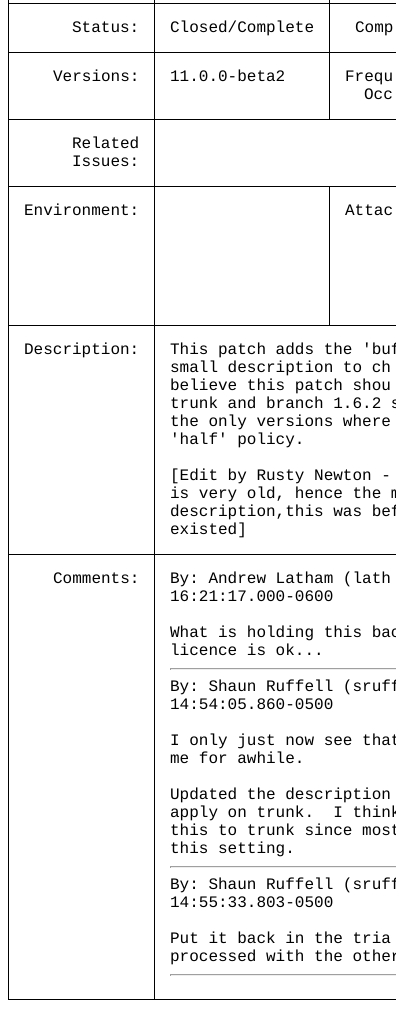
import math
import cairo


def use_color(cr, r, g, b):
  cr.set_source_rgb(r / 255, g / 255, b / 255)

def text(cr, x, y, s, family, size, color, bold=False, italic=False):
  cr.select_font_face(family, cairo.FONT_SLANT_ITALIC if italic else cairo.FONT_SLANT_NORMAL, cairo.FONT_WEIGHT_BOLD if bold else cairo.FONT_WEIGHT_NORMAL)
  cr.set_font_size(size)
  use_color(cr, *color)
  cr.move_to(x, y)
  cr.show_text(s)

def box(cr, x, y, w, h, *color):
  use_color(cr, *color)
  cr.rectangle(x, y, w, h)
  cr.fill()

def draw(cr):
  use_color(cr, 255, 255, 255)
  cr.paint()
  box(cr, 329, 3, 67, 1, 0, 0, 0)
  box(cr, 329, 52, 67, 1, 0, 0, 0)
  box(cr, 154, 119, 242, 1, 0, 0, 0)
  box(cr, 329, 52, 1, 68, 0, 0, 0)
  box(cr, 154, 52, 176, 1, 0, 0, 0)
  box(cr, 329, 3, 1, 50, 0, 0, 0)
  box(cr, 154, 3, 176, 1, 0, 0, 0)
  box(cr, 329, 186, 67, 1, 0, 0, 0)
  box(cr, 154, 325, 242, 1, 0, 0, 0)
  box(cr, 329, 186, 1, 140, 0, 0, 0)
  box(cr, 154, 186, 176, 1, 0, 0, 0)
  box(cr, 154, 554, 242, 1, 0, 0, 0)
  box(cr, 154, 999, 242, 1, 0, 0, 0)
  box(cr, 154, 554, 1, 446, 0, 0, 0)
  box(cr, 8, 554, 147, 1, 0, 0, 0)
  box(cr, 154, 325, 1, 230, 0, 0, 0)
  box(cr, 8, 325, 147, 1, 0, 0, 0)
  box(cr, 154, 186, 1, 140, 0, 0, 0)
  box(cr, 8, 186, 147, 1, 0, 0, 0)
  box(cr, 154, 119, 1, 68, 0, 0, 0)
  box(cr, 8, 119, 147, 1, 0, 0, 0)
  box(cr, 154, 52, 1, 68, 0, 0, 0)
  box(cr, 8, 52, 147, 1, 0, 0, 0)
  box(cr, 154, 3, 1, 50, 0, 0, 0)
  box(cr, 8, 3, 147, 1, 0, 0, 0)
  box(cr, 154, 0, 1, 4, 0, 0, 0)
  box(cr, 329, 0, 1, 4, 0, 0, 0)
  box(cr, 8, 999, 147, 1, 0, 0, 0)
  box(cr, 8, 554, 1, 446, 0, 0, 0)
  box(cr, 8, 325, 1, 230, 0, 0, 0)
  box(cr, 8, 186, 1, 140, 0, 0, 0)
  box(cr, 8, 119, 1, 68, 0, 0, 0)
  box(cr, 8, 52, 1, 68, 0, 0, 0)
  box(cr, 8, 0, 1, 53, 0, 0, 0)
  box(cr, 170, 668, 226, 1, 159, 159, 159)
  box(cr, 170, 669, 226, 1, 238, 238, 238)
  box(cr, 170, 668, 1, 2, 159, 159, 159)
  box(cr, 170, 866, 226, 1, 159, 159, 159)
  box(cr, 170, 867, 226, 1, 238, 238, 238)
  box(cr, 170, 866, 1, 2, 159, 159, 159)
  box(cr, 170, 974, 226, 1, 159, 159, 159)
  box(cr, 170, 975, 226, 1, 238, 238, 238)
  box(cr, 170, 974, 1, 2, 159, 159, 159)
  text(cr, 72, 32, "Status:", "Liberation Mono", 16, (0, 0, 0))
  text(cr, 170, 32, "Closed/Complete", "Liberation Mono", 16, (0, 0, 0))
  text(cr, 355, 32, "Comp", "Liberation Mono", 16, (0, 0, 0))
  text(cr, 53, 81, "Versions:", "Liberation Mono", 16, (0, 0, 0))
  text(cr, 170, 81, "11.0.0-beta2", "Liberation Mono", 16, (0, 0, 0))
  text(cr, 345, 81, "Frequ", "Liberation Mono", 16, (0, 0, 0))
  text(cr, 364, 99, "Occ", "Liberation Mono", 16, (0, 0, 0))
  text(cr, 72, 148, "Related", "Liberation Mono", 16, (0, 0, 0))
  text(cr, 72, 166, "Issues:", "Liberation Mono", 16, (0, 0, 0))
  text(cr, 24, 215, "Environment:", "Liberation Mono", 16, (0, 0, 0))
  text(cr, 345, 215, "Attac", "Liberation Mono", 16, (0, 0, 0))
  text(cr, 24, 354, "Description:", "Liberation Mono", 16, (0, 0, 0))
  text(cr, 170, 354, "This patch adds the 'buf", "Liberation Mono", 16, (0, 0, 0))
  text(cr, 170, 372, "small description to ch", "Liberation Mono", 16, (0, 0, 0))
  text(cr, 170, 390, "believe this patch shou", "Liberation Mono", 16, (0, 0, 0))
  text(cr, 170, 408, "trunk and branch 1.6.2 s", "Liberation Mono", 16, (0, 0, 0))
  text(cr, 170, 426, "the only versions where", "Liberation Mono", 16, (0, 0, 0))
  text(cr, 170, 444, "'half' policy.", "Liberation Mono", 16, (0, 0, 0))
  text(cr, 170, 480, "[Edit by Rusty Newton -", "Liberation Mono", 16, (0, 0, 0))
  text(cr, 170, 498, "is very old, hence the m", "Liberation Mono", 16, (0, 0, 0))
  text(cr, 170, 516, "description,this was bef", "Liberation Mono", 16, (0, 0, 0))
  text(cr, 170, 534, "existed]", "Liberation Mono", 16, (0, 0, 0))
  text(cr, 53, 583, "Comments:", "Liberation Mono", 16, (0, 0, 0))
  text(cr, 170, 583, "By: Andrew Latham (lath", "Liberation Mono", 16, (0, 0, 0))
  text(cr, 170, 601, "16:21:17.000-0600", "Liberation Mono", 16, (0, 0, 0))
  text(cr, 170, 637, "What is holding this bac", "Liberation Mono", 16, (0, 0, 0))
  text(cr, 170, 655, "licence is ok...", "Liberation Mono", 16, (0, 0, 0))
  text(cr, 170, 691, "By: Shaun Ruffell (sruff", "Liberation Mono", 16, (0, 0, 0))
  text(cr, 170, 709, "14:54:05.860-0500", "Liberation Mono", 16, (0, 0, 0))
  text(cr, 170, 745, "I only just now see that", "Liberation Mono", 16, (0, 0, 0))
  text(cr, 170, 763, "me for awhile.", "Liberation Mono", 16, (0, 0, 0))
  text(cr, 170, 799, "Updated the description", "Liberation Mono", 16, (0, 0, 0))
  text(cr, 170, 817, "apply on trunk.  I think", "Liberation Mono", 16, (0, 0, 0))
  text(cr, 170, 835, "this to trunk since most", "Liberation Mono", 16, (0, 0, 0))
  text(cr, 170, 853, "this setting.", "Liberation Mono", 16, (0, 0, 0))
  text(cr, 170, 889, "By: Shaun Ruffell (sruff", "Liberation Mono", 16, (0, 0, 0))
  text(cr, 170, 907, "14:55:33.803-0500", "Liberation Mono", 16, (0, 0, 0))
  text(cr, 170, 943, "Put it back in the tria", "Liberation Mono", 16, (0, 0, 0))
  text(cr, 170, 961, "processed with the other", "Liberation Mono", 16, (0, 0, 0))


surface = cairo.ImageSurface(cairo.FORMAT_RGB24, 396, 1016)
cr = cairo.Context(surface)
options = cairo.FontOptions()
options.set_hint_metrics(cairo.HINT_METRICS_OFF)
options.set_hint_style(cairo.HINT_STYLE_NONE)
cr.set_font_options(options)
cr.set_miter_limit(4)
draw(cr)
surface.write_to_png("out.png")
